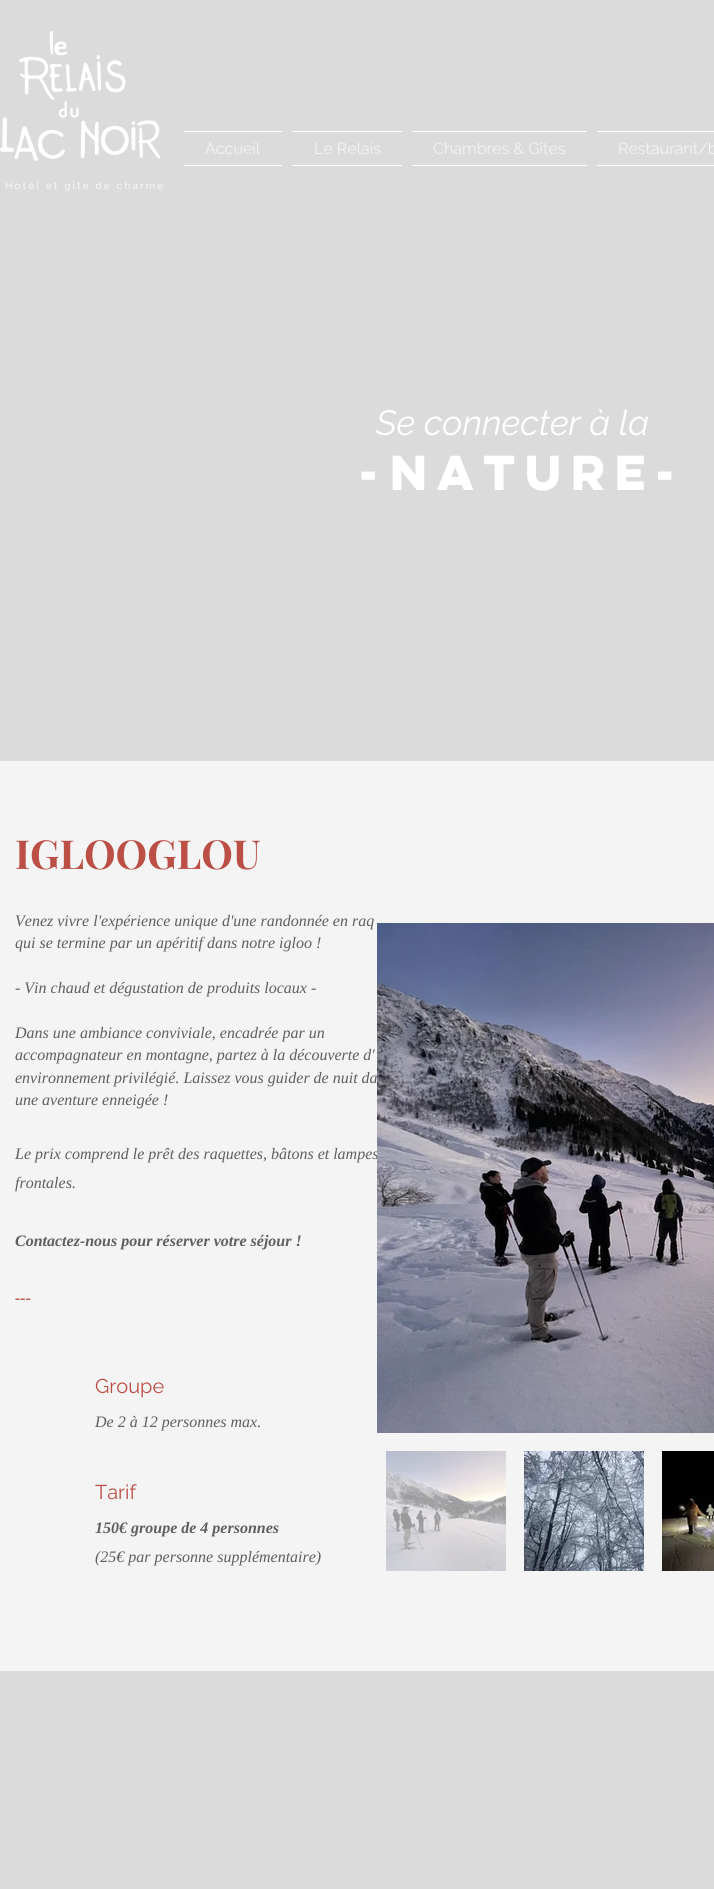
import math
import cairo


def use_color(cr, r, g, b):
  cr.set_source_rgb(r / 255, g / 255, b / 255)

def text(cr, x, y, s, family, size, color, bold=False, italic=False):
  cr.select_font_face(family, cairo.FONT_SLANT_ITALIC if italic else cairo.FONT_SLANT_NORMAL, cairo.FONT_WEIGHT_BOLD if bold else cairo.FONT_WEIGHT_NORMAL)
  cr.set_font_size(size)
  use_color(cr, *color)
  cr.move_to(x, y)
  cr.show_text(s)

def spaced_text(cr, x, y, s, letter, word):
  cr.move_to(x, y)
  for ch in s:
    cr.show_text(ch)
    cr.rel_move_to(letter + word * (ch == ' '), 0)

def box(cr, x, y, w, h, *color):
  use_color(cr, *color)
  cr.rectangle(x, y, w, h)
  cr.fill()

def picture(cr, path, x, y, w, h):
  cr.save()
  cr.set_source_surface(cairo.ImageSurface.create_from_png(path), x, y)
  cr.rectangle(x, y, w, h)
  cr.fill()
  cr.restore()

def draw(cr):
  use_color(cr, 219, 219, 219)
  cr.paint()
  box(cr, 184, 131, 98, 1, 255, 255, 255)
  box(cr, 184, 165, 98, 1, 255, 255, 255)
  box(cr, 292, 131, 110, 1, 255, 255, 255)
  box(cr, 292, 165, 110, 1, 255, 255, 255)
  box(cr, 412, 131, 175, 1, 255, 255, 255)
  box(cr, 412, 165, 175, 1, 255, 255, 255)
  box(cr, 597, 131, 117, 1, 255, 255, 255)
  box(cr, 597, 165, 117, 1, 255, 255, 255)
  picture(cr, "img_01.png", 0, 31, 160, 130)
  box(cr, 0, 761, 714, 910, 244, 244, 244)
  picture(cr, "img_03.png", 386, 1451, 120, 120)
  picture(cr, "img_04.png", 524, 1451, 120, 120)
  picture(cr, "img_05.png", 662, 1451, 52, 120)
  text(cr, 205, 154, "Accueil", "Raleway", 16, (244, 244, 244))
  text(cr, 314, 154, "Le Relais", "Raleway", 16, (244, 244, 244))
  text(cr, 433, 154, "Chambres & Gîtes", "Raleway", 16, (244, 244, 244))
  text(cr, 618, 154, "Restaurant/b", "Raleway", 16, (244, 244, 244))
  cr.set_font_size(10)
  use_color(cr, 255, 255, 255)
  spaced_text(cr, 5, 189, "Hotel et gîte de charme", 2.2, 0)
  text(cr, 376, 435, "Se connecter à la", "Raleway", 35, (255, 255, 255), italic=True)
  cr.select_font_face("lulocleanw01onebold", cairo.FONT_SLANT_NORMAL, cairo.FONT_WEIGHT_BOLD)
  cr.set_font_size(44)
  spaced_text(cr, 359, 490, "-", 2.2, 0)
  text(cr, 390, 490, "NATURE-", "lulocleanw01onebold", 44, (255, 255, 255), bold=True)
  text(cr, 15, 869, "IGLOOGLOU", "Playfair Display", 40, (187, 79, 69), bold=True)
  text(cr, 15, 926, "Venez vivre l'expérience unique d'une randonnée en raq", "Liberation Serif", 16, (96, 94, 94), italic=True)
  text(cr, 15, 948, "qui se termine par un apéritif dans notre igloo !", "Liberation Serif", 16, (96, 94, 94), italic=True)
  text(cr, 15, 993, "- Vin chaud et dégustation de produits locaux -", "Liberation Serif", 16, (96, 94, 94), italic=True)
  text(cr, 15, 1038, "Dans une ambiance conviviale, encadrée par un", "Liberation Serif", 16, (96, 94, 94), italic=True)
  text(cr, 15, 1060, "accompagnateur en montagne, partez à la découverte d'", "Liberation Serif", 16, (96, 94, 94), italic=True)
  text(cr, 15, 1083, "environnement privilégié. Laissez vous guider de nuit da", "Liberation Serif", 16, (96, 94, 94), italic=True)
  text(cr, 15, 1105, "une aventure enneigée !", "Liberation Serif", 16, (96, 94, 94), italic=True)
  text(cr, 15, 1159, "Le prix comprend le prêt des raquettes, bâtons et lampes", "Liberation Serif", 16, (96, 94, 94), italic=True)
  text(cr, 15, 1188, "frontales.", "Liberation Serif", 16, (96, 94, 94), italic=True)
  text(cr, 15, 1246, "Contactez-nous pour réserver votre séjour !", "Liberation Serif", 16, (96, 94, 94), bold=True, italic=True)
  text(cr, 15, 1303, "---", "Liberation Serif", 16, (187, 79, 69), bold=True, italic=True)
  picture(cr, "img_02.png", 377, 923, 337, 510)
  text(cr, 95, 1393, "Groupe", "Raleway", 20, (187, 79, 69))
  text(cr, 95, 1427, "De 2 à 12 personnes max.", "Liberation Serif", 16, (96, 94, 94), italic=True)
  text(cr, 95, 1499, "Tarif", "Raleway", 20, (187, 79, 69))
  text(cr, 95, 1533, "150€ groupe de 4 personnes", "Liberation Serif", 16, (96, 94, 94), bold=True, italic=True)
  text(cr, 95, 1562, "(25€ par personne supplémentaire)", "Liberation Serif", 16, (96, 94, 94), italic=True)


surface = cairo.ImageSurface(cairo.FORMAT_RGB24, 714, 1889)
cr = cairo.Context(surface)
options = cairo.FontOptions()
options.set_hint_metrics(cairo.HINT_METRICS_OFF)
options.set_hint_style(cairo.HINT_STYLE_NONE)
cr.set_font_options(options)
cr.set_miter_limit(4)
draw(cr)
surface.write_to_png("out.png")
